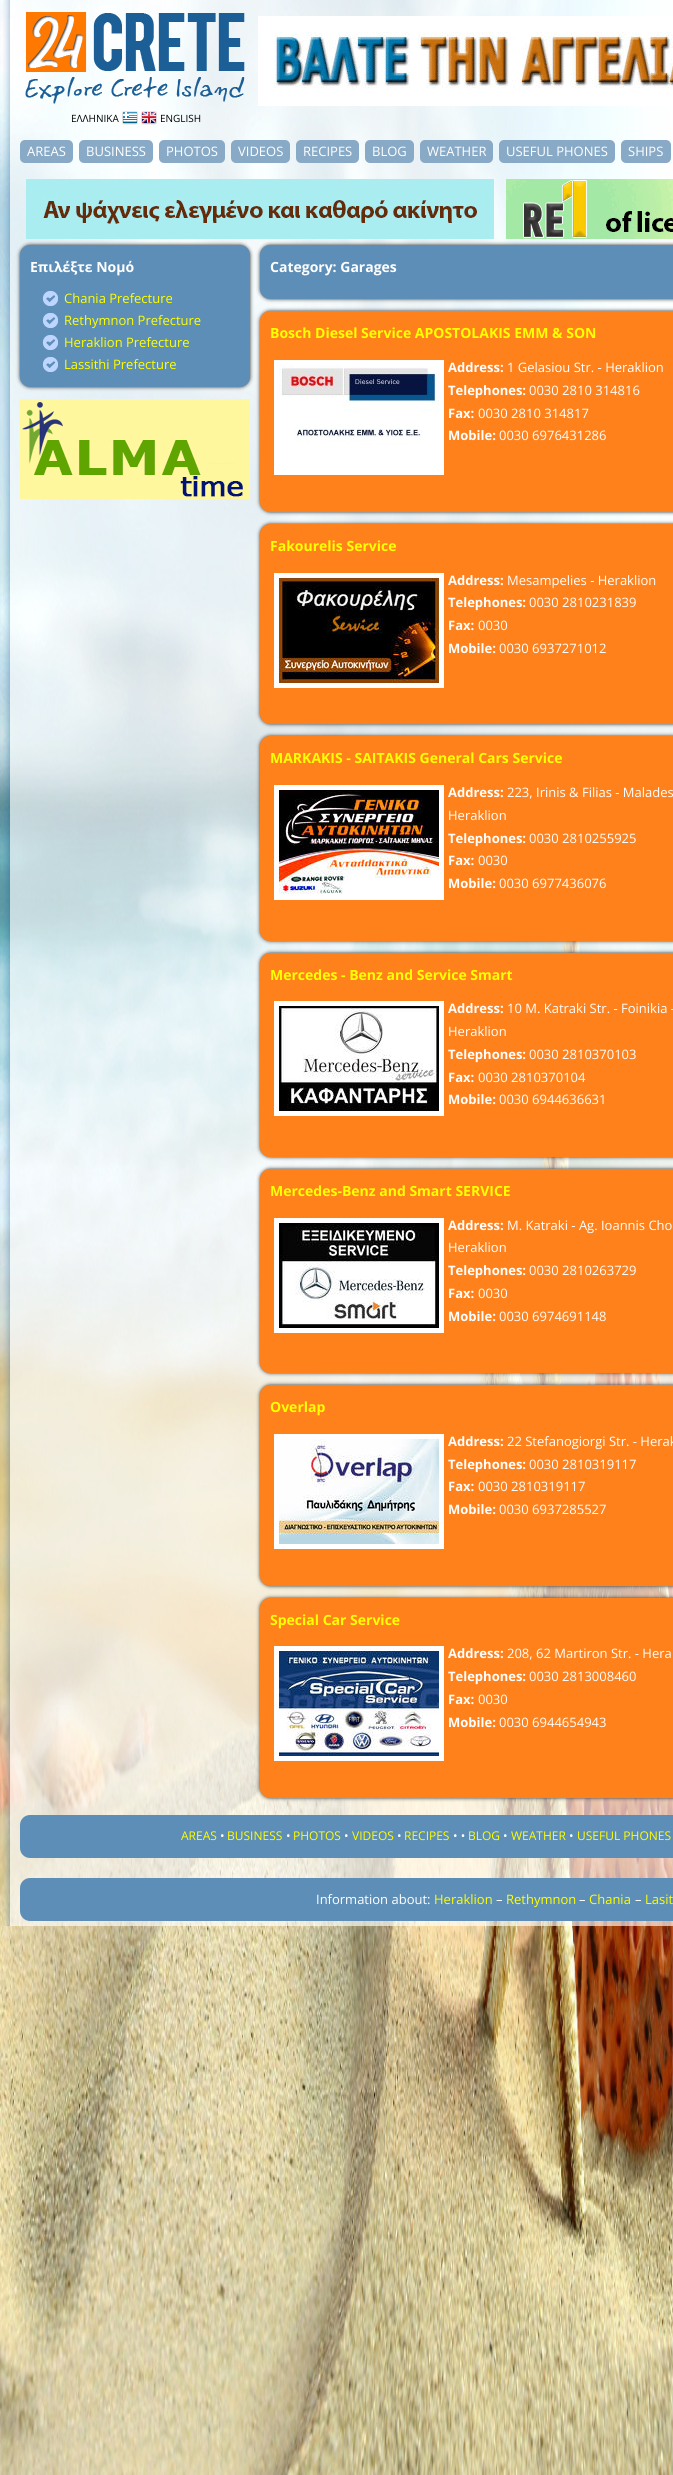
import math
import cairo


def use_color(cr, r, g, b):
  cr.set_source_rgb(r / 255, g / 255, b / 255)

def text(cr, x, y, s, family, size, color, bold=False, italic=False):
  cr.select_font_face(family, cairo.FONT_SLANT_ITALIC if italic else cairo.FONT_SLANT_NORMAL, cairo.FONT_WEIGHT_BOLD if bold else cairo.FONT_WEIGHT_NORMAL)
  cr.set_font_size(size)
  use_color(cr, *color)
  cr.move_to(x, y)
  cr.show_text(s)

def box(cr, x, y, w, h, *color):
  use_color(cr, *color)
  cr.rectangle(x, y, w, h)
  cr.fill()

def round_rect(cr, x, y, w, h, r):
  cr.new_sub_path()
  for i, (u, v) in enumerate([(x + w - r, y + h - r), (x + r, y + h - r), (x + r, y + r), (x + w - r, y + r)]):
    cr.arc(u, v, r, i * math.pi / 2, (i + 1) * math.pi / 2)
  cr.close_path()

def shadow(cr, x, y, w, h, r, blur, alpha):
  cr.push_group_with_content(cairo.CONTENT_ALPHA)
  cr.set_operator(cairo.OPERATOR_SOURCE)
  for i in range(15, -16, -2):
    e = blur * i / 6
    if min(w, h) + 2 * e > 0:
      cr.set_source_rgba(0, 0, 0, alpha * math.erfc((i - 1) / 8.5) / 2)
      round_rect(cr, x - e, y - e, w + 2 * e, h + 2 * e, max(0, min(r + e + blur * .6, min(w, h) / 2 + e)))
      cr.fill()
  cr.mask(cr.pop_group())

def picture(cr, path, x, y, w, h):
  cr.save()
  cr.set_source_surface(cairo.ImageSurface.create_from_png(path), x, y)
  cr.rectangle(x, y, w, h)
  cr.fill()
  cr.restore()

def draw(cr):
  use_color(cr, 255, 255, 255)
  cr.paint()
  picture(cr, "img_01.png", 0, 0, 673, 2475)
  picture(cr, "img_02.png", 3, 0, 670, 1926)
  picture(cr, "img_03.png", 258, 16, 415, 90)
  picture(cr, "img_04.png", 25, 12, 220, 92)
  picture(cr, "img_05.png", 122, 111, 16, 14)
  picture(cr, "img_06.png", 141, 111, 16, 14)
  use_color(cr, 136, 170, 198)
  round_rect(cr, 20, 140, 53, 23, 5)
  cr.fill()
  round_rect(cr, 79, 140, 74, 23, 5)
  cr.fill()
  round_rect(cr, 159, 140, 66, 23, 5)
  cr.fill()
  round_rect(cr, 231, 140, 59, 23, 5)
  cr.fill()
  round_rect(cr, 296, 140, 63, 23, 5)
  cr.fill()
  round_rect(cr, 365, 140, 49, 23, 5)
  cr.fill()
  round_rect(cr, 420, 140, 73, 23, 5)
  cr.fill()
  round_rect(cr, 499, 140, 116, 23, 5)
  cr.fill()
  round_rect(cr, 621, 140, 50, 23, 5)
  cr.fill()
  picture(cr, "img_07.png", 26, 179, 468, 60)
  picture(cr, "img_08.png", 506, 179, 167, 60)
  use_color(cr, 51, 51, 51)
  shadow(cr, 20, 245, 230, 142, 10, 2, 1)
  use_color(cr, 93, 142, 183)
  round_rect(cr, 20, 245, 230, 142, 10)
  cr.fill()
  picture(cr, "img_09.png", 42, 291, 16, 15)
  picture(cr, "img_09.png", 42, 313, 16, 15)
  picture(cr, "img_09.png", 42, 335, 16, 15)
  picture(cr, "img_09.png", 42, 357, 16, 15)
  picture(cr, "img_10.png", 20, 399, 230, 100)
  use_color(cr, 51, 51, 51)
  shadow(cr, 260, 245, 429, 54, 10, 2, 1)
  use_color(cr, 93, 142, 183)
  round_rect(cr, 260, 245, 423, 54, 10)
  cr.fill()
  use_color(cr, 51, 51, 51)
  shadow(cr, 260, 311, 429, 201, 10, 2, 1)
  use_color(cr, 255, 129, 27)
  round_rect(cr, 260, 311, 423, 201, 10)
  cr.fill()
  box(cr, 274, 360, 170, 115, 255, 255, 255)
  picture(cr, "img_11.png", 279, 365, 160, 80)
  use_color(cr, 51, 51, 51)
  shadow(cr, 260, 524, 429, 200, 10, 2, 1)
  use_color(cr, 255, 129, 27)
  round_rect(cr, 260, 524, 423, 200, 10)
  cr.fill()
  box(cr, 274, 573, 170, 115, 255, 255, 255)
  picture(cr, "img_12.png", 279, 578, 160, 105)
  use_color(cr, 51, 51, 51)
  shadow(cr, 260, 736, 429, 205, 10, 2, 1)
  use_color(cr, 255, 129, 27)
  round_rect(cr, 260, 736, 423, 205, 10)
  cr.fill()
  box(cr, 274, 785, 170, 115, 255, 255, 255)
  picture(cr, "img_13.png", 279, 790, 160, 104)
  use_color(cr, 51, 51, 51)
  shadow(cr, 260, 953, 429, 204, 10, 2, 1)
  use_color(cr, 255, 129, 27)
  round_rect(cr, 260, 953, 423, 204, 10)
  cr.fill()
  box(cr, 274, 1001, 170, 115, 255, 255, 255)
  picture(cr, "img_14.png", 279, 1006, 160, 105)
  use_color(cr, 51, 51, 51)
  shadow(cr, 260, 1169, 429, 204, 10, 2, 1)
  use_color(cr, 255, 129, 27)
  round_rect(cr, 260, 1169, 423, 204, 10)
  cr.fill()
  box(cr, 274, 1218, 170, 115, 255, 255, 255)
  picture(cr, "img_15.png", 279, 1223, 160, 105)
  use_color(cr, 51, 51, 51)
  shadow(cr, 260, 1385, 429, 201, 10, 2, 1)
  use_color(cr, 255, 129, 27)
  round_rect(cr, 260, 1385, 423, 201, 10)
  cr.fill()
  box(cr, 274, 1434, 170, 115, 255, 255, 255)
  picture(cr, "img_16.png", 279, 1439, 160, 105)
  use_color(cr, 51, 51, 51)
  shadow(cr, 260, 1598, 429, 200, 10, 2, 1)
  use_color(cr, 255, 129, 27)
  round_rect(cr, 260, 1598, 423, 200, 10)
  cr.fill()
  box(cr, 274, 1646, 170, 115, 255, 255, 255)
  picture(cr, "img_17.png", 279, 1651, 160, 105)
  use_color(cr, 93, 142, 183)
  round_rect(cr, 20, 1815, 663, 43, 10)
  cr.fill()
  round_rect(cr, 20, 1878, 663, 43, 10)
  cr.fill()
  text(cr, 71, 122, "ΕΛΛΗΝΙΚΑ", "Open Sans", 10, (0, 0, 0))
  text(cr, 160, 122, "ENGLISH", "Open Sans", 10, (0, 0, 0))
  text(cr, 27, 156, "AREAS", "Open Sans", 13, (255, 255, 255))
  text(cr, 86, 156, "BUSINESS", "Open Sans", 13, (255, 255, 255))
  text(cr, 166, 156, "PHOTOS", "Open Sans", 13, (255, 255, 255))
  text(cr, 238, 156, "VIDEOS", "Open Sans", 13, (255, 255, 255))
  text(cr, 303, 156, "RECIPES", "Open Sans", 13, (255, 255, 255))
  text(cr, 372, 156, "BLOG", "Open Sans", 13, (255, 255, 255))
  text(cr, 427, 156, "WEATHER", "Open Sans", 13, (255, 255, 255))
  text(cr, 506, 156, "USEFUL PHONES", "Open Sans", 13, (255, 255, 255))
  text(cr, 628, 156, "SHIPS", "Open Sans", 13, (255, 255, 255))
  text(cr, 30, 272, "Επιλέξτε Νομό", "Open Sans", 14, (255, 255, 255), bold=True)
  text(cr, 64, 303, "Chania Prefecture", "Open Sans", 13, (255, 255, 0))
  text(cr, 64, 325, "Rethymnon Prefecture", "Open Sans", 13, (255, 255, 0))
  text(cr, 64, 347, "Heraklion Prefecture", "Open Sans", 13, (255, 255, 0))
  text(cr, 64, 369, "Lassithi Prefecture", "Open Sans", 13, (255, 255, 0))
  text(cr, 270, 272, "Category: Garages", "Open Sans", 14, (255, 255, 255), bold=True)
  text(cr, 270, 338, "Bosch Diesel Service APOSTOLAKIS EMM & SON", "Open Sans", 14, (255, 255, 0), bold=True)
  text(cr, 448, 372, "Address:", "Open Sans", 13, (255, 255, 255), bold=True)
  text(cr, 507, 372, "1 Gelasiou Str. - Heraklion", "Open Sans", 13, (255, 255, 255))
  text(cr, 448, 395, "Telephones:", "Open Sans", 13, (255, 255, 255), bold=True)
  text(cr, 529, 395, "0030 2810 314816", "Open Sans", 13, (255, 255, 255))
  text(cr, 448, 418, "Fax:", "Open Sans", 13, (255, 255, 255), bold=True)
  text(cr, 478, 418, "0030 2810 314817", "Open Sans", 13, (255, 255, 255))
  text(cr, 448, 440, "Mobile:", "Open Sans", 13, (255, 255, 255), bold=True)
  text(cr, 499, 440, "0030 6976431286", "Open Sans", 13, (255, 255, 255))
  text(cr, 270, 551, "Fakourelis Service", "Open Sans", 14, (255, 255, 0), bold=True)
  text(cr, 448, 585, "Address:", "Open Sans", 13, (255, 255, 255), bold=True)
  text(cr, 507, 585, "Mesampelies - Heraklion", "Open Sans", 13, (255, 255, 255))
  text(cr, 448, 607, "Telephones:", "Open Sans", 13, (255, 255, 255), bold=True)
  text(cr, 529, 607, "0030 2810231839", "Open Sans", 13, (255, 255, 255))
  text(cr, 448, 630, "Fax:", "Open Sans", 13, (255, 255, 255), bold=True)
  text(cr, 478, 630, "0030", "Open Sans", 13, (255, 255, 255))
  text(cr, 448, 653, "Mobile:", "Open Sans", 13, (255, 255, 255), bold=True)
  text(cr, 499, 653, "0030 6937271012", "Open Sans", 13, (255, 255, 255))
  text(cr, 270, 763, "MARKAKIS - SAITAKIS General Cars Service", "Open Sans", 14, (255, 255, 0), bold=True)
  text(cr, 448, 797, "Address:", "Open Sans", 13, (255, 255, 255), bold=True)
  text(cr, 507, 797, "223, Irinis & Filias - Malades", "Open Sans", 13, (255, 255, 255))
  text(cr, 448, 820, "Heraklion", "Open Sans", 13, (255, 255, 255))
  text(cr, 448, 843, "Telephones:", "Open Sans", 13, (255, 255, 255), bold=True)
  text(cr, 529, 843, "0030 2810255925", "Open Sans", 13, (255, 255, 255))
  text(cr, 448, 865, "Fax:", "Open Sans", 13, (255, 255, 255), bold=True)
  text(cr, 478, 865, "0030", "Open Sans", 13, (255, 255, 255))
  text(cr, 448, 888, "Mobile:", "Open Sans", 13, (255, 255, 255), bold=True)
  text(cr, 499, 888, "0030 6977436076", "Open Sans", 13, (255, 255, 255))
  text(cr, 270, 980, "Mercedes - Benz and Service Smart", "Open Sans", 14, (255, 255, 0), bold=True)
  text(cr, 448, 1013, "Address:", "Open Sans", 13, (255, 255, 255), bold=True)
  text(cr, 507, 1013, "10 M. Katraki Str. - Foinikia -", "Open Sans", 13, (255, 255, 255))
  text(cr, 448, 1036, "Heraklion", "Open Sans", 13, (255, 255, 255))
  text(cr, 448, 1059, "Telephones:", "Open Sans", 13, (255, 255, 255), bold=True)
  text(cr, 529, 1059, "0030 2810370103", "Open Sans", 13, (255, 255, 255))
  text(cr, 448, 1082, "Fax:", "Open Sans", 13, (255, 255, 255), bold=True)
  text(cr, 478, 1082, "0030 2810370104", "Open Sans", 13, (255, 255, 255))
  text(cr, 448, 1104, "Mobile:", "Open Sans", 13, (255, 255, 255), bold=True)
  text(cr, 499, 1104, "0030 6944636631", "Open Sans", 13, (255, 255, 255))
  text(cr, 270, 1196, "Mercedes-Benz and Smart SERVICE", "Open Sans", 14, (255, 255, 0), bold=True)
  text(cr, 448, 1230, "Address:", "Open Sans", 13, (255, 255, 255), bold=True)
  text(cr, 507, 1230, "M. Katraki - Ag. Ioannis Cho", "Open Sans", 13, (255, 255, 255))
  text(cr, 448, 1252, "Heraklion", "Open Sans", 13, (255, 255, 255))
  text(cr, 448, 1275, "Telephones:", "Open Sans", 13, (255, 255, 255), bold=True)
  text(cr, 529, 1275, "0030 2810263729", "Open Sans", 13, (255, 255, 255))
  text(cr, 448, 1298, "Fax:", "Open Sans", 13, (255, 255, 255), bold=True)
  text(cr, 478, 1298, "0030", "Open Sans", 13, (255, 255, 255))
  text(cr, 448, 1321, "Mobile:", "Open Sans", 13, (255, 255, 255), bold=True)
  text(cr, 499, 1321, "0030 6974691148", "Open Sans", 13, (255, 255, 255))
  text(cr, 270, 1412, "Overlap", "Open Sans", 14, (255, 255, 0), bold=True)
  text(cr, 448, 1446, "Address:", "Open Sans", 13, (255, 255, 255), bold=True)
  text(cr, 507, 1446, "22 Stefanogiorgi Str. - Herak", "Open Sans", 13, (255, 255, 255))
  text(cr, 448, 1469, "Telephones:", "Open Sans", 13, (255, 255, 255), bold=True)
  text(cr, 529, 1469, "0030 2810319117", "Open Sans", 13, (255, 255, 255))
  text(cr, 448, 1491, "Fax:", "Open Sans", 13, (255, 255, 255), bold=True)
  text(cr, 478, 1491, "0030 2810319117", "Open Sans", 13, (255, 255, 255))
  text(cr, 448, 1514, "Mobile:", "Open Sans", 13, (255, 255, 255), bold=True)
  text(cr, 499, 1514, "0030 6937285527", "Open Sans", 13, (255, 255, 255))
  text(cr, 270, 1625, "Special Car Service", "Open Sans", 14, (255, 255, 0), bold=True)
  text(cr, 448, 1658, "Address:", "Open Sans", 13, (255, 255, 255), bold=True)
  text(cr, 507, 1658, "208, 62 Martiron Str. - Hera", "Open Sans", 13, (255, 255, 255))
  text(cr, 448, 1681, "Telephones:", "Open Sans", 13, (255, 255, 255), bold=True)
  text(cr, 529, 1681, "0030 2813008460", "Open Sans", 13, (255, 255, 255))
  text(cr, 448, 1704, "Fax:", "Open Sans", 13, (255, 255, 255), bold=True)
  text(cr, 478, 1704, "0030", "Open Sans", 13, (255, 255, 255))
  text(cr, 448, 1727, "Mobile:", "Open Sans", 13, (255, 255, 255), bold=True)
  text(cr, 499, 1727, "0030 6944654943", "Open Sans", 13, (255, 255, 255))
  text(cr, 181, 1840, "AREAS", "Open Sans", 12, (255, 255, 0))
  text(cr, 220, 1840, "•", "Open Sans", 12, (255, 255, 255))
  text(cr, 227, 1840, "BUSINESS", "Open Sans", 12, (255, 255, 0))
  text(cr, 286, 1840, "•", "Open Sans", 12, (255, 255, 255))
  text(cr, 293, 1840, "PHOTOS", "Open Sans", 12, (255, 255, 0))
  text(cr, 344, 1840, "•", "Open Sans", 12, (255, 255, 255))
  text(cr, 352, 1840, "VIDEOS", "Open Sans", 12, (255, 255, 0))
  text(cr, 397, 1840, "•", "Open Sans", 12, (255, 255, 255))
  text(cr, 404, 1840, "RECIPES", "Open Sans", 12, (255, 255, 0))
  text(cr, 453, 1840, "• •", "Open Sans", 12, (255, 255, 255))
  text(cr, 468, 1840, "BLOG", "Open Sans", 12, (255, 255, 0))
  text(cr, 503, 1840, "•", "Open Sans", 12, (255, 255, 255))
  text(cr, 511, 1840, "WEATHER", "Open Sans", 12, (255, 255, 0))
  text(cr, 569, 1840, "•", "Open Sans", 12, (255, 255, 255))
  text(cr, 577, 1840, "USEFUL PHONES", "Open Sans", 12, (255, 255, 0))
  text(cr, 316, 1904, "Information about:", "Open Sans", 13, (255, 255, 255))
  text(cr, 434, 1904, "Heraklion", "Open Sans", 13, (255, 255, 0))
  text(cr, 496, 1904, "–", "Open Sans", 13, (255, 255, 255))
  text(cr, 506, 1904, "Rethymnon", "Open Sans", 13, (255, 255, 0))
  text(cr, 579, 1904, "–", "Open Sans", 13, (255, 255, 255))
  text(cr, 589, 1904, "Chania", "Open Sans", 13, (255, 255, 0))
  text(cr, 635, 1904, "–", "Open Sans", 13, (255, 255, 255))
  text(cr, 645, 1904, "Lasit", "Open Sans", 13, (255, 255, 0))


surface = cairo.ImageSurface(cairo.FORMAT_RGB24, 673, 2475)
cr = cairo.Context(surface)
options = cairo.FontOptions()
options.set_hint_metrics(cairo.HINT_METRICS_OFF)
options.set_hint_style(cairo.HINT_STYLE_NONE)
cr.set_font_options(options)
cr.set_miter_limit(4)
draw(cr)
surface.write_to_png("out.png")
